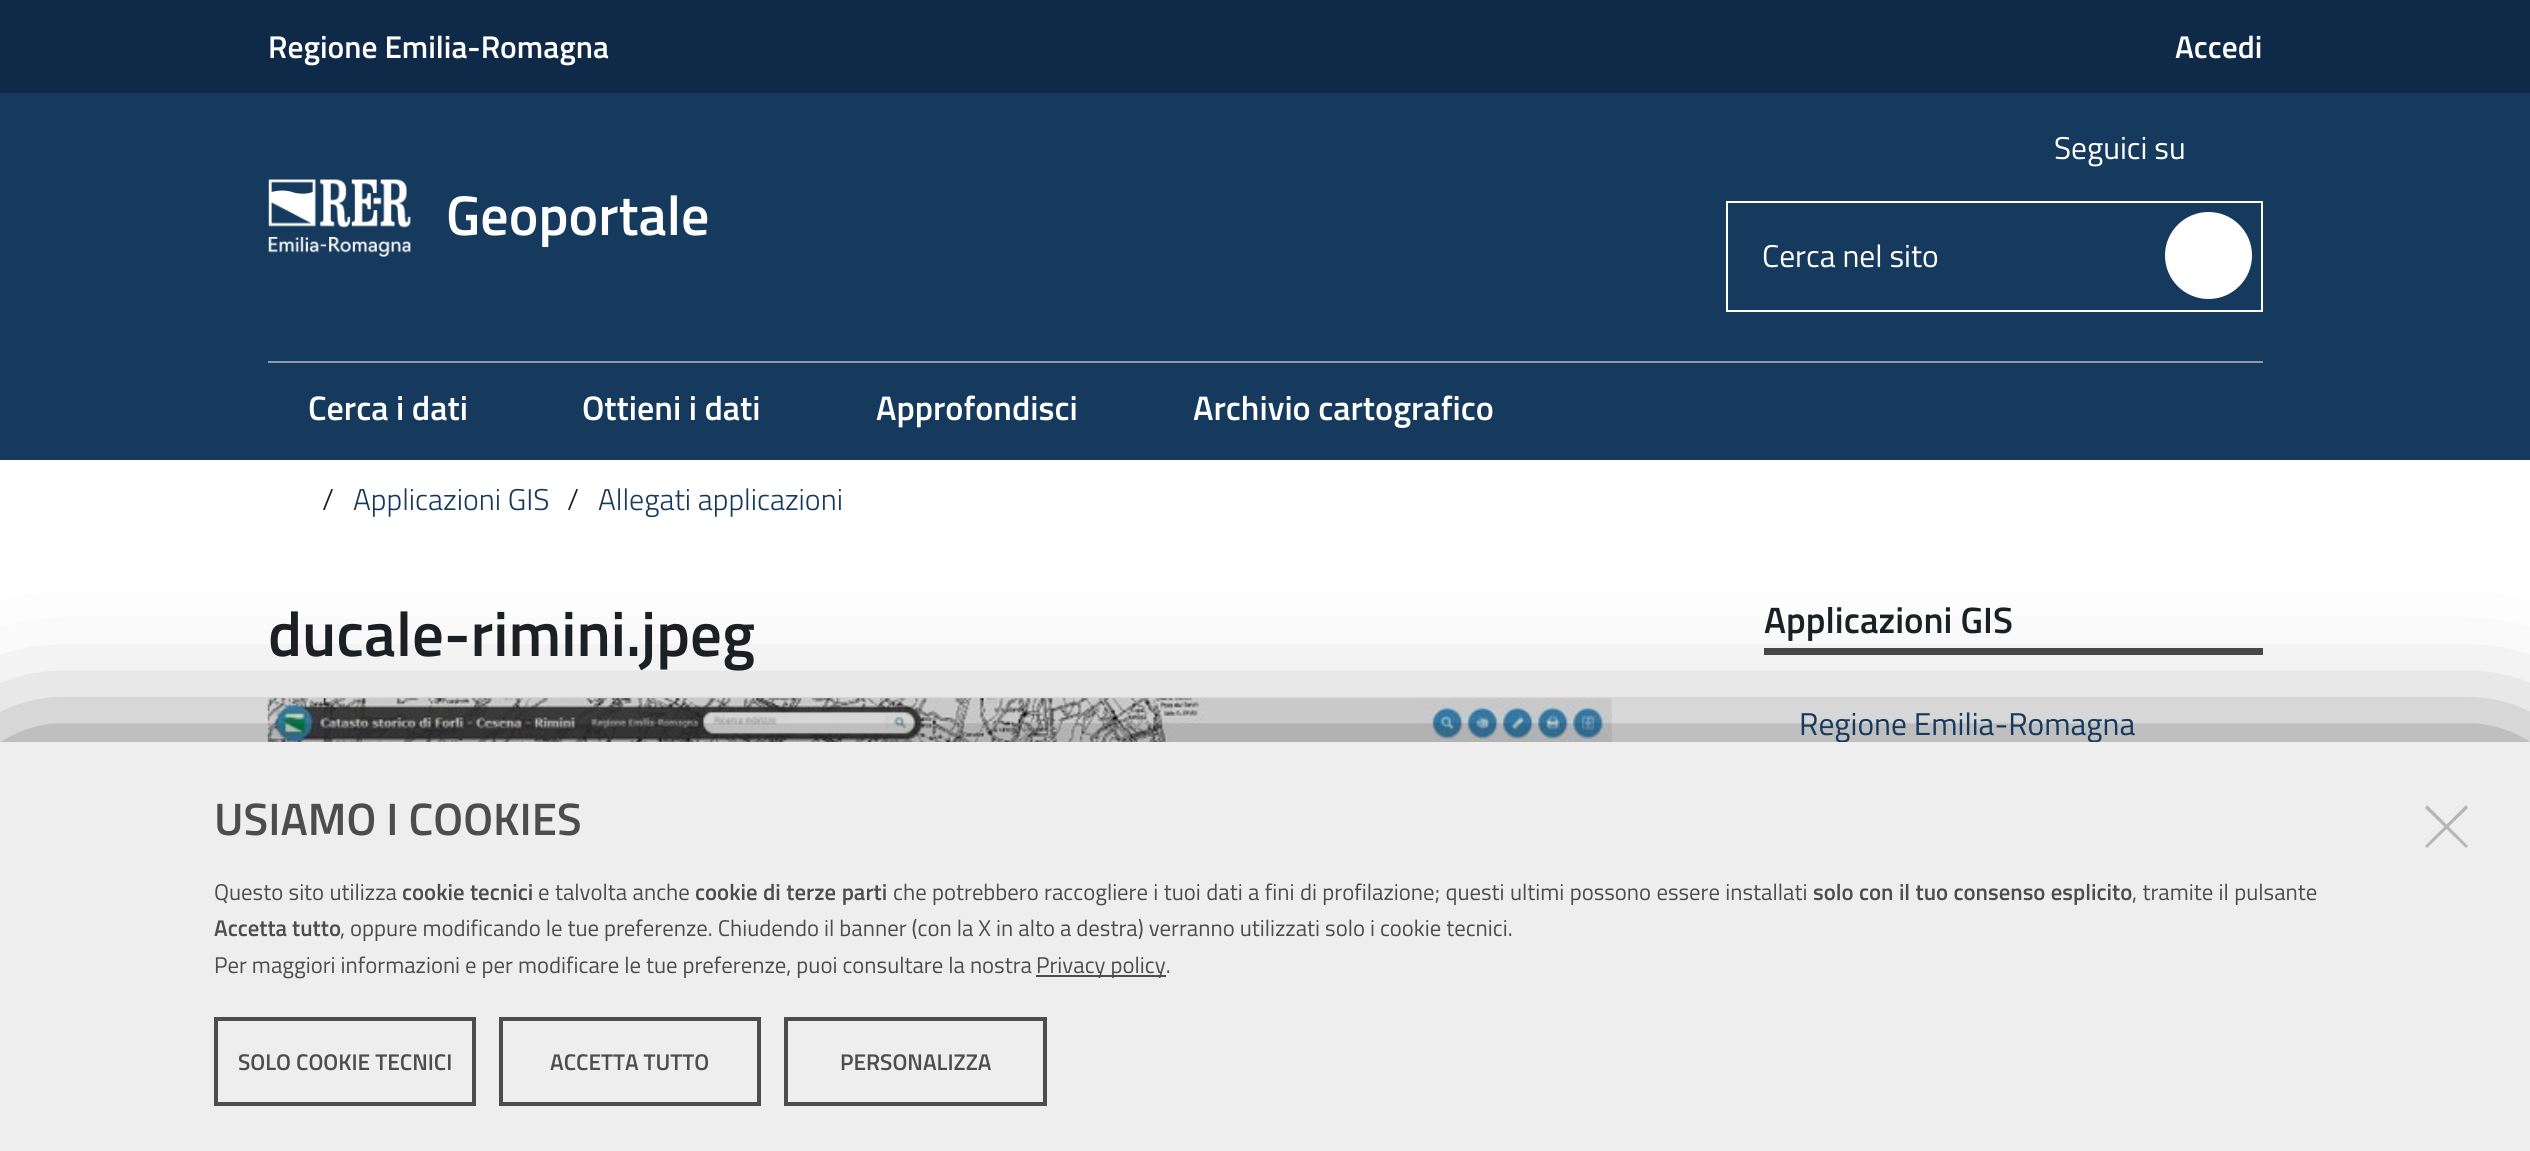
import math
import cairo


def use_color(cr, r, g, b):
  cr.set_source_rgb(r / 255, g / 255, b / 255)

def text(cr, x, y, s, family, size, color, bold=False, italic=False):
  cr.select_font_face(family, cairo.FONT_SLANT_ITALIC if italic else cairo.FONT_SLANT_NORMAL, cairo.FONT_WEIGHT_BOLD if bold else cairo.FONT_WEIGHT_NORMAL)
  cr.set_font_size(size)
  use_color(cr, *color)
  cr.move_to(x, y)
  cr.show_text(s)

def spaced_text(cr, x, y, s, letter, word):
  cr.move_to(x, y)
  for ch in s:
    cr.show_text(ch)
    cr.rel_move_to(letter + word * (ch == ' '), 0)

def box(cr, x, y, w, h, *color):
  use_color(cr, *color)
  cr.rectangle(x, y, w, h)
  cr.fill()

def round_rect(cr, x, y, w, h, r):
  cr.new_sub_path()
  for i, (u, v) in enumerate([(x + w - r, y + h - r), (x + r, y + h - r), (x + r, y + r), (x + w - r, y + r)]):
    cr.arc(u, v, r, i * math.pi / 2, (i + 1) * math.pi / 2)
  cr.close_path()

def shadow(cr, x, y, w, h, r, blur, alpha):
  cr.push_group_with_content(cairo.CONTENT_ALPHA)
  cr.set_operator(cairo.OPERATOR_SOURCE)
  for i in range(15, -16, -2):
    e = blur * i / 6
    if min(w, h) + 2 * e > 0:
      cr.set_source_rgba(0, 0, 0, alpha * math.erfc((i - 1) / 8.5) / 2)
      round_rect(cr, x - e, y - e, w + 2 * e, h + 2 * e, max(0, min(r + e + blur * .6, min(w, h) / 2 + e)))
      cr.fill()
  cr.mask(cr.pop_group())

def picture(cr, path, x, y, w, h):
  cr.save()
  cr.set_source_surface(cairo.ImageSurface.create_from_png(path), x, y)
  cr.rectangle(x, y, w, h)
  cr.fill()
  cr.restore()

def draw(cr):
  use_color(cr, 255, 255, 255)
  cr.paint()
  box(cr, 0, 93, 2530, 367, 22, 57, 94)
  box(cr, 0, 0, 2530, 93, 15, 42, 72)
  picture(cr, "img_01.png", 268, 179, 143, 78)
  cr.rectangle(1727, 202, 535, 109)
  use_color(cr, 255, 255, 255)
  cr.stroke()
  cr.arc(2208.5, 255.5, 43.5, 0, 2 * math.pi)
  cr.fill()
  box(cr, 268, 361, 1995, 2, 139, 156, 175)
  picture(cr, "img_02.png", 267, 698, 1345, 44)
  box(cr, 1764, 648, 499, 7, 74, 74, 74)
  use_color(cr, 0, 0, 0)
  shadow(cr, 16, 789, 2499, 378, 0, 79, 1)
  text(cr, 268, 58, "Regione Emilia-Romagna", "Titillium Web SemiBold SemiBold", 31.5, (255, 255, 255))
  text(cr, 2175, 58, "Accedi", "Titillium Web SemiBold SemiBold", 31.5, (255, 255, 255))
  text(cr, 446, 235, "Geoportale", "Titillium Web SemiBold SemiBold", 56, (255, 255, 255))
  text(cr, 2054, 159, "Seguici su", "Titillium Web", 31.5, (255, 255, 255))
  text(cr, 1762, 267, "Cerca nel sito", "Titillium Web", 31.5, (255, 255, 255))
  text(cr, 308, 420, "Cerca i dati", "Titillium Web SemiBold SemiBold", 34.1, (255, 255, 255))
  text(cr, 582, 420, "Ottieni i dati", "Titillium Web SemiBold SemiBold", 34.1, (255, 255, 255))
  text(cr, 876, 420, "Approfondisci", "Titillium Web SemiBold SemiBold", 34.1, (255, 255, 255))
  text(cr, 1193, 420, "Archivio cartografico", "Titillium Web SemiBold SemiBold", 34.1, (255, 255, 255))
  text(cr, 322, 510, "/", "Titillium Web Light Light", 30, (28, 32, 36))
  text(cr, 353, 510, "Applicazioni GIS", "Titillium Web Light Light", 30, (22, 57, 94))
  text(cr, 567, 510, "/", "Titillium Web Light Light", 30, (28, 32, 36))
  text(cr, 598, 510, "Allegati applicazioni", "Titillium Web Light Light", 30, (22, 57, 94))
  text(cr, 268, 656, "ducale-rimini.jpeg", "Titillium Web SemiBold SemiBold", 63, (28, 32, 36))
  text(cr, 1764, 633, "Applicazioni GIS", "Titillium Web SemiBold SemiBold", 36.75, (28, 32, 36))
  text(cr, 1799, 735, "Regione Emilia-Romagna", "Titillium Web", 31.5, (22, 57, 94))
  box(cr, 0, 742, 2530, 409, 238, 238, 238)
  text(cr, 214, 835, "USIAMO I COOKIES", "Titillium Web SemiBold SemiBold", 45.5, (77, 77, 77))
  cr.select_font_face("Titillium Web")
  cr.set_font_size(22.75)
  spaced_text(cr, 214, 900, "Questo sito utilizza", 0, 0.4)
  cr.select_font_face("Titillium Web SemiBold SemiBold")
  spaced_text(cr, 402, 900, "cookie tecnici", 0, 0.4)
  cr.select_font_face("Titillium Web")
  spaced_text(cr, 538, 900, "e talvolta anche", 0, 0.4)
  cr.select_font_face("Titillium Web SemiBold SemiBold")
  spaced_text(cr, 695, 900, "cookie di terze parti", 0, 0.5)
  cr.select_font_face("Titillium Web")
  spaced_text(cr, 893, 900, "che potrebbero raccogliere i tuoi dati a fini di profilazione; questi ultimi possono essere installati", 0, 0.4)
  cr.select_font_face("Titillium Web SemiBold SemiBold")
  spaced_text(cr, 1813, 900, "solo con il tuo consenso esplicito", 0, 0.4)
  cr.select_font_face("Titillium Web")
  spaced_text(cr, 2132, 900, ", tramite il pulsante", 0, 0.4)
  text(cr, 214, 936, "Accetta tutto", "Titillium Web SemiBold SemiBold", 22.75, (77, 77, 77))
  text(cr, 340, 936, ", oppure modificando le tue preferenze. Chiudendo il banner (con la X in alto a destra) verranno utilizzati solo i cookie tecnici.", "Titillium Web", 22.75, (77, 77, 77))
  text(cr, 214, 973, "Per maggiori informazioni e per modificare le tue preferenze, puoi consultare la nostra", "Titillium Web", 22.75, (77, 77, 77))
  box(cr, 1036, 975, 130, 2, 77, 77, 77)
  text(cr, 1036, 973, "Privacy policy.", "Titillium Web", 22.75, (77, 77, 77))
  use_color(cr, 182, 182, 182)
  cr.new_path()
  cr.move_to(2466, 805)
  cr.line_to(2468, 808)
  cr.line_to(2427, 848)
  cr.line_to(2425, 846)
  cr.close_path()
  cr.fill()
  cr.new_path()
  cr.move_to(2425, 808)
  cr.line_to(2427, 805)
  cr.line_to(2468, 846)
  cr.line_to(2466, 848)
  cr.close_path()
  cr.fill()
  cr.rectangle(216, 1019, 258, 85)
  use_color(cr, 77, 77, 77)
  cr.set_line_width(4)
  cr.stroke()
  text(cr, 238, 1070, "SOLO COOKIE TECNICI", "Titillium Web SemiBold SemiBold", 22.75, (77, 77, 77))
  cr.rectangle(501, 1019, 258, 85)
  cr.stroke()
  text(cr, 550, 1070, "ACCETTA TUTTO", "Titillium Web SemiBold SemiBold", 22.75, (77, 77, 77))
  cr.rectangle(786, 1019, 259, 85)
  cr.stroke()
  text(cr, 840, 1070, "PERSONALIZZA", "Titillium Web SemiBold SemiBold", 22.75, (77, 77, 77))


surface = cairo.ImageSurface(cairo.FORMAT_RGB24, 2530, 1151)
cr = cairo.Context(surface)
options = cairo.FontOptions()
options.set_hint_metrics(cairo.HINT_METRICS_OFF)
options.set_hint_style(cairo.HINT_STYLE_NONE)
cr.set_font_options(options)
cr.set_miter_limit(4)
draw(cr)
surface.write_to_png("out.png")
